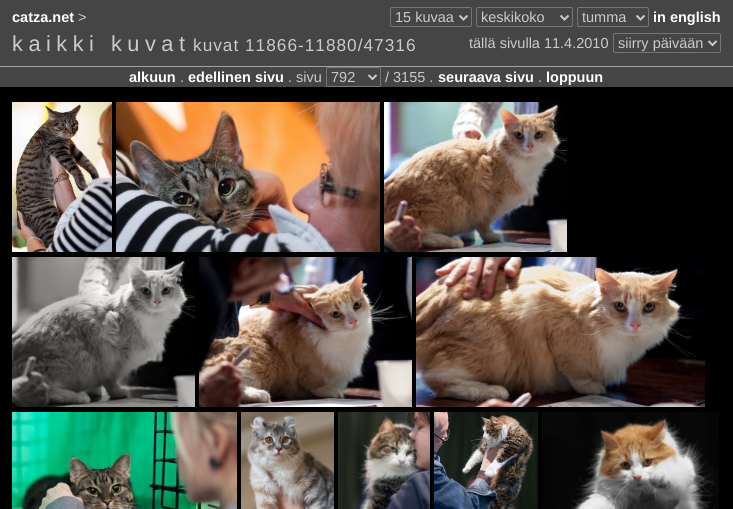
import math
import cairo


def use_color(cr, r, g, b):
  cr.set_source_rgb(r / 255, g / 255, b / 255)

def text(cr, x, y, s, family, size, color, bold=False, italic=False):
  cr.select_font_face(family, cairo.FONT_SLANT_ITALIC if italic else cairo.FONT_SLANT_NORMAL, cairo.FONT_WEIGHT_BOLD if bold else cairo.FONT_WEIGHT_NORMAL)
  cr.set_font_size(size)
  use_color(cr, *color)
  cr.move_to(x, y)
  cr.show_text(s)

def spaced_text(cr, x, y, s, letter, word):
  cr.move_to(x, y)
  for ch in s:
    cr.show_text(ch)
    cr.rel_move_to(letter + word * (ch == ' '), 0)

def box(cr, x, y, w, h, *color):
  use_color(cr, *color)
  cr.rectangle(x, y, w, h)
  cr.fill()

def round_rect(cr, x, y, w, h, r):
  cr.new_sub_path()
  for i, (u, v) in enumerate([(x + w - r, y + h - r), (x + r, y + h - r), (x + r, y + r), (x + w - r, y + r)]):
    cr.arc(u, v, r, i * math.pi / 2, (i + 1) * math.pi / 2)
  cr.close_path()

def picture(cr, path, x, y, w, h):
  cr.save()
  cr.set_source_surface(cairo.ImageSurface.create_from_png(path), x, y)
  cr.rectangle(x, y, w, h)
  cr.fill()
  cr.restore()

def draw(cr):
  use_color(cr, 0, 0, 0)
  cr.paint()
  box(cr, 0, 0, 733, 87, 69, 69, 69)
  round_rect(cr, 390.5, 7.5, 81, 19, 1.5)
  use_color(cr, 118, 118, 118)
  cr.set_line_width(1)
  cr.stroke()
  cr.new_path()
  cr.move_to(459.5, 15.5)
  cr.line_to(463.5, 19.5)
  cr.line_to(467.5, 15.5)
  use_color(cr, 203, 203, 203)
  cr.set_line_width(2)
  cr.stroke()
  round_rect(cr, 476.5, 7.5, 96, 19, 1.5)
  use_color(cr, 118, 118, 118)
  cr.set_line_width(1)
  cr.stroke()
  cr.new_path()
  cr.move_to(560.5, 15.5)
  cr.line_to(564.5, 19.5)
  cr.line_to(568.5, 15.5)
  use_color(cr, 203, 203, 203)
  cr.set_line_width(2)
  cr.stroke()
  round_rect(cr, 577.5, 7.5, 71, 19, 1.5)
  use_color(cr, 118, 118, 118)
  cr.set_line_width(1)
  cr.stroke()
  cr.new_path()
  cr.move_to(636.5, 15.5)
  cr.line_to(640.5, 19.5)
  cr.line_to(644.5, 15.5)
  use_color(cr, 203, 203, 203)
  cr.set_line_width(2)
  cr.stroke()
  round_rect(cr, 613.5, 33.5, 107, 19, 1.5)
  use_color(cr, 118, 118, 118)
  cr.set_line_width(1)
  cr.stroke()
  cr.new_path()
  cr.move_to(708.5, 41)
  cr.line_to(712.5, 45)
  cr.line_to(716.5, 41)
  use_color(cr, 203, 203, 203)
  cr.set_line_width(2)
  cr.stroke()
  box(cr, 0, 66, 733, 1, 163, 163, 163)
  round_rect(cr, 326.5, 67.5, 54, 19, 1.5)
  use_color(cr, 118, 118, 118)
  cr.set_line_width(1)
  cr.stroke()
  cr.new_path()
  cr.move_to(368.5, 75)
  cr.line_to(372.5, 79)
  cr.line_to(376.5, 75)
  use_color(cr, 203, 203, 203)
  cr.set_line_width(2)
  cr.stroke()
  picture(cr, "img_01.png", 12, 102, 100, 150)
  picture(cr, "img_02.png", 116, 102, 264, 150)
  picture(cr, "img_03.png", 384, 102, 183, 150)
  picture(cr, "img_04.png", 12, 257, 183, 150)
  picture(cr, "img_05.png", 199, 257, 213, 150)
  picture(cr, "img_06.png", 416, 257, 289, 150)
  picture(cr, "img_07.png", 12, 412, 225, 97)
  picture(cr, "img_08.png", 241, 412, 93, 97)
  picture(cr, "img_09.png", 338, 412, 92, 97)
  picture(cr, "img_10.png", 434, 412, 104, 97)
  picture(cr, "img_11.png", 542, 412, 177, 97)
  text(cr, 12, 22, "catza.net", "Liberation Sans", 14.5, (255, 255, 255), bold=True)
  text(cr, 78, 22, ">", "Liberation Sans", 14.5, (203, 203, 203))
  text(cr, 395, 22, "15 kuvaa", "Liberation Sans", 14.5, (203, 203, 203))
  text(cr, 481, 22, "keskikoko", "Liberation Sans", 14.5, (203, 203, 203))
  text(cr, 582, 22, "tumma", "Liberation Sans", 14.5, (203, 203, 203))
  text(cr, 653, 22, "in english", "Liberation Sans", 14.5, (255, 255, 255), bold=True)
  cr.select_font_face("Liberation Sans")
  cr.set_font_size(21.75)
  use_color(cr, 203, 203, 203)
  spaced_text(cr, 12, 51, "kaikki kuvat", 5.5, 0)
  cr.set_font_size(17.25)
  spaced_text(cr, 193, 51, "kuvat 11866-11880/47316", 1, 0)
  text(cr, 469, 48, "tällä sivulla 11.4.2010", "Liberation Sans", 14.5, (203, 203, 203))
  text(cr, 618, 48, "siirry päivään", "Liberation Sans", 14.5, (203, 203, 203))
  text(cr, 129, 82, "alkuun", "Liberation Sans", 14.5, (255, 255, 255), bold=True)
  text(cr, 180, 82, ".", "Liberation Sans", 14.5, (203, 203, 203))
  text(cr, 188, 82, "edellinen sivu", "Liberation Sans", 14.5, (255, 255, 255), bold=True)
  text(cr, 288, 82, ". sivu", "Liberation Sans", 14.5, (203, 203, 203))
  text(cr, 331, 82, "792", "Liberation Sans", 14.5, (203, 203, 203))
  text(cr, 385, 82, "/ 3155 .", "Liberation Sans", 14.5, (203, 203, 203))
  text(cr, 438, 82, "seuraava sivu", "Liberation Sans", 14.5, (255, 255, 255), bold=True)
  text(cr, 538, 82, ".", "Liberation Sans", 14.5, (203, 203, 203))
  text(cr, 546, 82, "loppuun", "Liberation Sans", 14.5, (255, 255, 255), bold=True)


surface = cairo.ImageSurface(cairo.FORMAT_RGB24, 733, 509)
cr = cairo.Context(surface)
options = cairo.FontOptions()
options.set_hint_metrics(cairo.HINT_METRICS_OFF)
options.set_hint_style(cairo.HINT_STYLE_NONE)
cr.set_font_options(options)
cr.set_miter_limit(4)
draw(cr)
surface.write_to_png("out.png")
